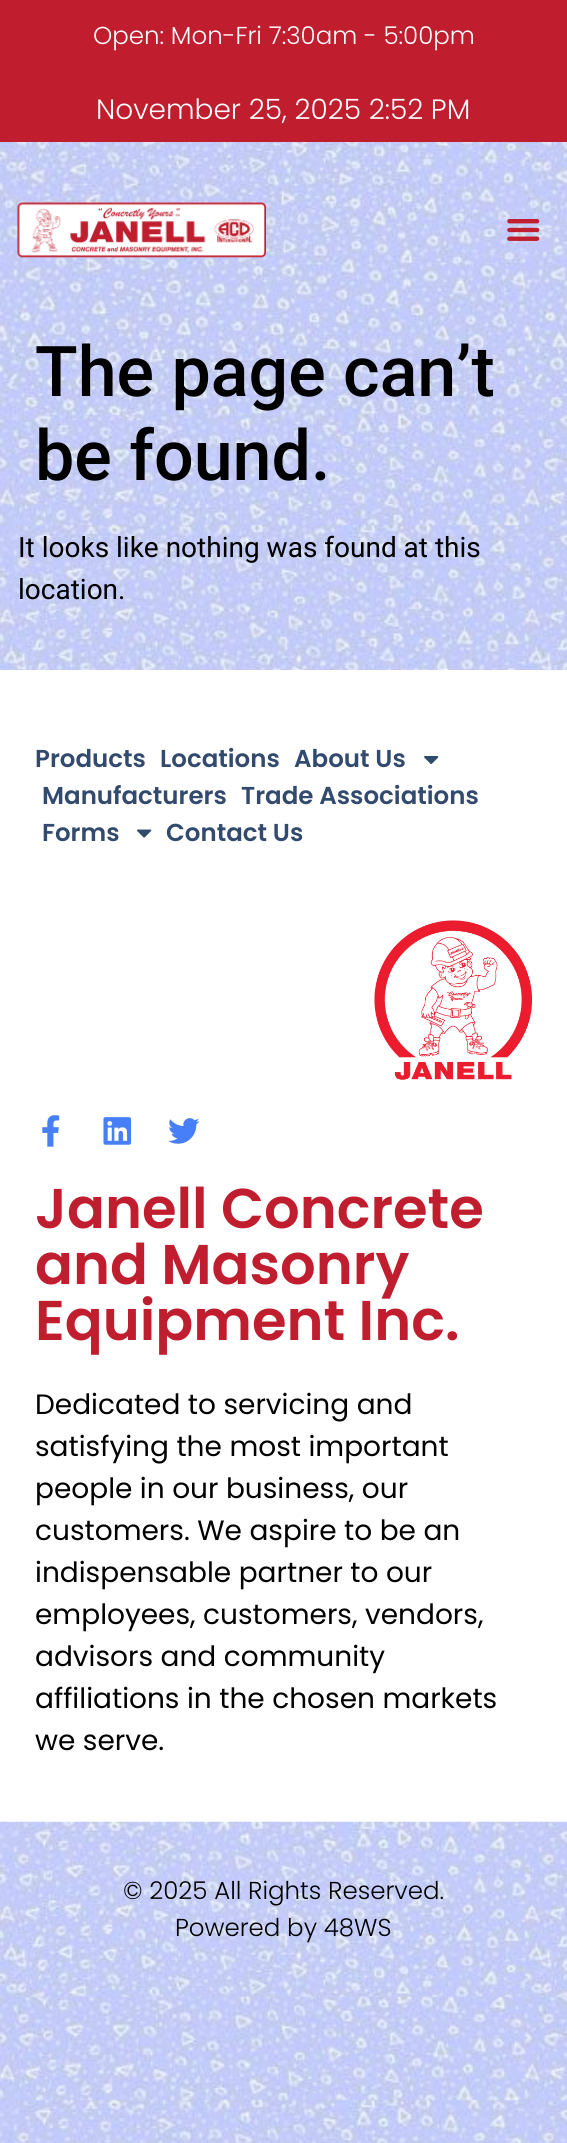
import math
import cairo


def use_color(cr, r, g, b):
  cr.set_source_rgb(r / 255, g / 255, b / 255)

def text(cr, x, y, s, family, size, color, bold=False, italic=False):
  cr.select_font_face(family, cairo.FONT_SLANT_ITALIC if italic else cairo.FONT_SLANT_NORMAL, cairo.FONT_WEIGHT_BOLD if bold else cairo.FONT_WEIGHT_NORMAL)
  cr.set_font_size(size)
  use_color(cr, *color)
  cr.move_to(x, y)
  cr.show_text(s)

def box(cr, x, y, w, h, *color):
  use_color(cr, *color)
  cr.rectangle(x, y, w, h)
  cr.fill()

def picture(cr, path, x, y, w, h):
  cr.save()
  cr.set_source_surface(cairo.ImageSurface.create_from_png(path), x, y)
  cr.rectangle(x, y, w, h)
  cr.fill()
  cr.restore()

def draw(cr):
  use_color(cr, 255, 255, 255)
  cr.paint()
  picture(cr, "img_01.png", 0, 142, 567, 2001)
  box(cr, 0, 0, 567, 142, 192, 30, 46)
  picture(cr, "img_02.png", 17, 202, 249, 56)
  picture(cr, "img_03.png", 507, 219, 33, 22)
  box(cr, 0, 670, 567, 1152, 255, 255, 255)
  picture(cr, "img_04.png", 424, 756, 15, 8)
  picture(cr, "img_05.png", 137, 829, 15, 9)
  picture(cr, "img_06.png", 374, 920, 158, 160)
  picture(cr, "img_07.png", 42, 1115, 18, 32)
  picture(cr, "img_08.png", 103, 1117, 29, 28)
  picture(cr, "img_09.png", 168, 1118, 32, 26)
  picture(cr, "img_10.png", 0, 1821, 567, 176)
  text(cr, 93, 44, "Open: Mon-Fri 7:30am - 5:00pm", "Poppins Light", 24.5, (255, 255, 255))
  text(cr, 96, 119, "November 25, 2025 2:52 PM", "Poppins Light", 28, (255, 255, 255))
  text(cr, 35, 396, "The page can’t", "Roboto Medium", 70, (0, 0, 0))
  text(cr, 35, 480, "be found.", "Roboto Medium", 70, (0, 0, 0))
  text(cr, 18, 557, "It looks like nothing was found at this", "Roboto", 28, (0, 0, 0))
  text(cr, 18, 599, "location.", "Roboto", 28, (0, 0, 0))
  text(cr, 35, 767, "Products", "Poppins SemiBold", 24.5, (50, 74, 109))
  text(cr, 160, 767, "Locations", "Poppins SemiBold", 24.5, (50, 74, 109))
  text(cr, 294, 767, "About Us", "Poppins SemiBold", 24.5, (50, 74, 109))
  text(cr, 42, 804, "Manufacturers", "Poppins SemiBold", 24.5, (50, 74, 109))
  text(cr, 241, 804, "Trade Associations", "Poppins SemiBold", 24.5, (50, 74, 109))
  text(cr, 42, 841, "Forms", "Poppins SemiBold", 24.5, (50, 74, 109))
  text(cr, 166, 841, "Contact Us", "Poppins SemiBold", 24.5, (50, 74, 109))
  text(cr, 35, 1228, "Janell Concrete", "Poppins SemiBold", 56, (192, 30, 46))
  text(cr, 35, 1284, "and Masonry", "Poppins SemiBold", 56, (192, 30, 46))
  text(cr, 35, 1340, "Equipment Inc.", "Poppins SemiBold", 56, (192, 30, 46))
  text(cr, 35, 1414, "Dedicated to servicing and", "Poppins", 28, (0, 0, 0))
  text(cr, 35, 1456, "satisfying the most important", "Poppins", 28, (0, 0, 0))
  text(cr, 35, 1498, "people in our business, our", "Poppins", 28, (0, 0, 0))
  text(cr, 35, 1540, "customers. We aspire to be an", "Poppins", 28, (0, 0, 0))
  text(cr, 35, 1582, "indispensable partner to our", "Poppins", 28, (0, 0, 0))
  text(cr, 35, 1624, "employees, customers, vendors,", "Poppins", 28, (0, 0, 0))
  text(cr, 35, 1666, "advisors and community", "Poppins", 28, (0, 0, 0))
  text(cr, 35, 1708, "affiliations in the chosen markets", "Poppins", 28, (0, 0, 0))
  text(cr, 35, 1750, "we serve.", "Poppins", 28, (0, 0, 0))
  text(cr, 123, 1899, "© 2025 All Rights Reserved.", "Poppins Light", 24.5, (0, 0, 0))
  text(cr, 175, 1936, "Powered by 48WS", "Poppins Light", 24.5, (0, 0, 0))


surface = cairo.ImageSurface(cairo.FORMAT_RGB24, 567, 2143)
cr = cairo.Context(surface)
options = cairo.FontOptions()
options.set_hint_metrics(cairo.HINT_METRICS_OFF)
options.set_hint_style(cairo.HINT_STYLE_NONE)
cr.set_font_options(options)
cr.set_miter_limit(4)
draw(cr)
surface.write_to_png("out.png")
